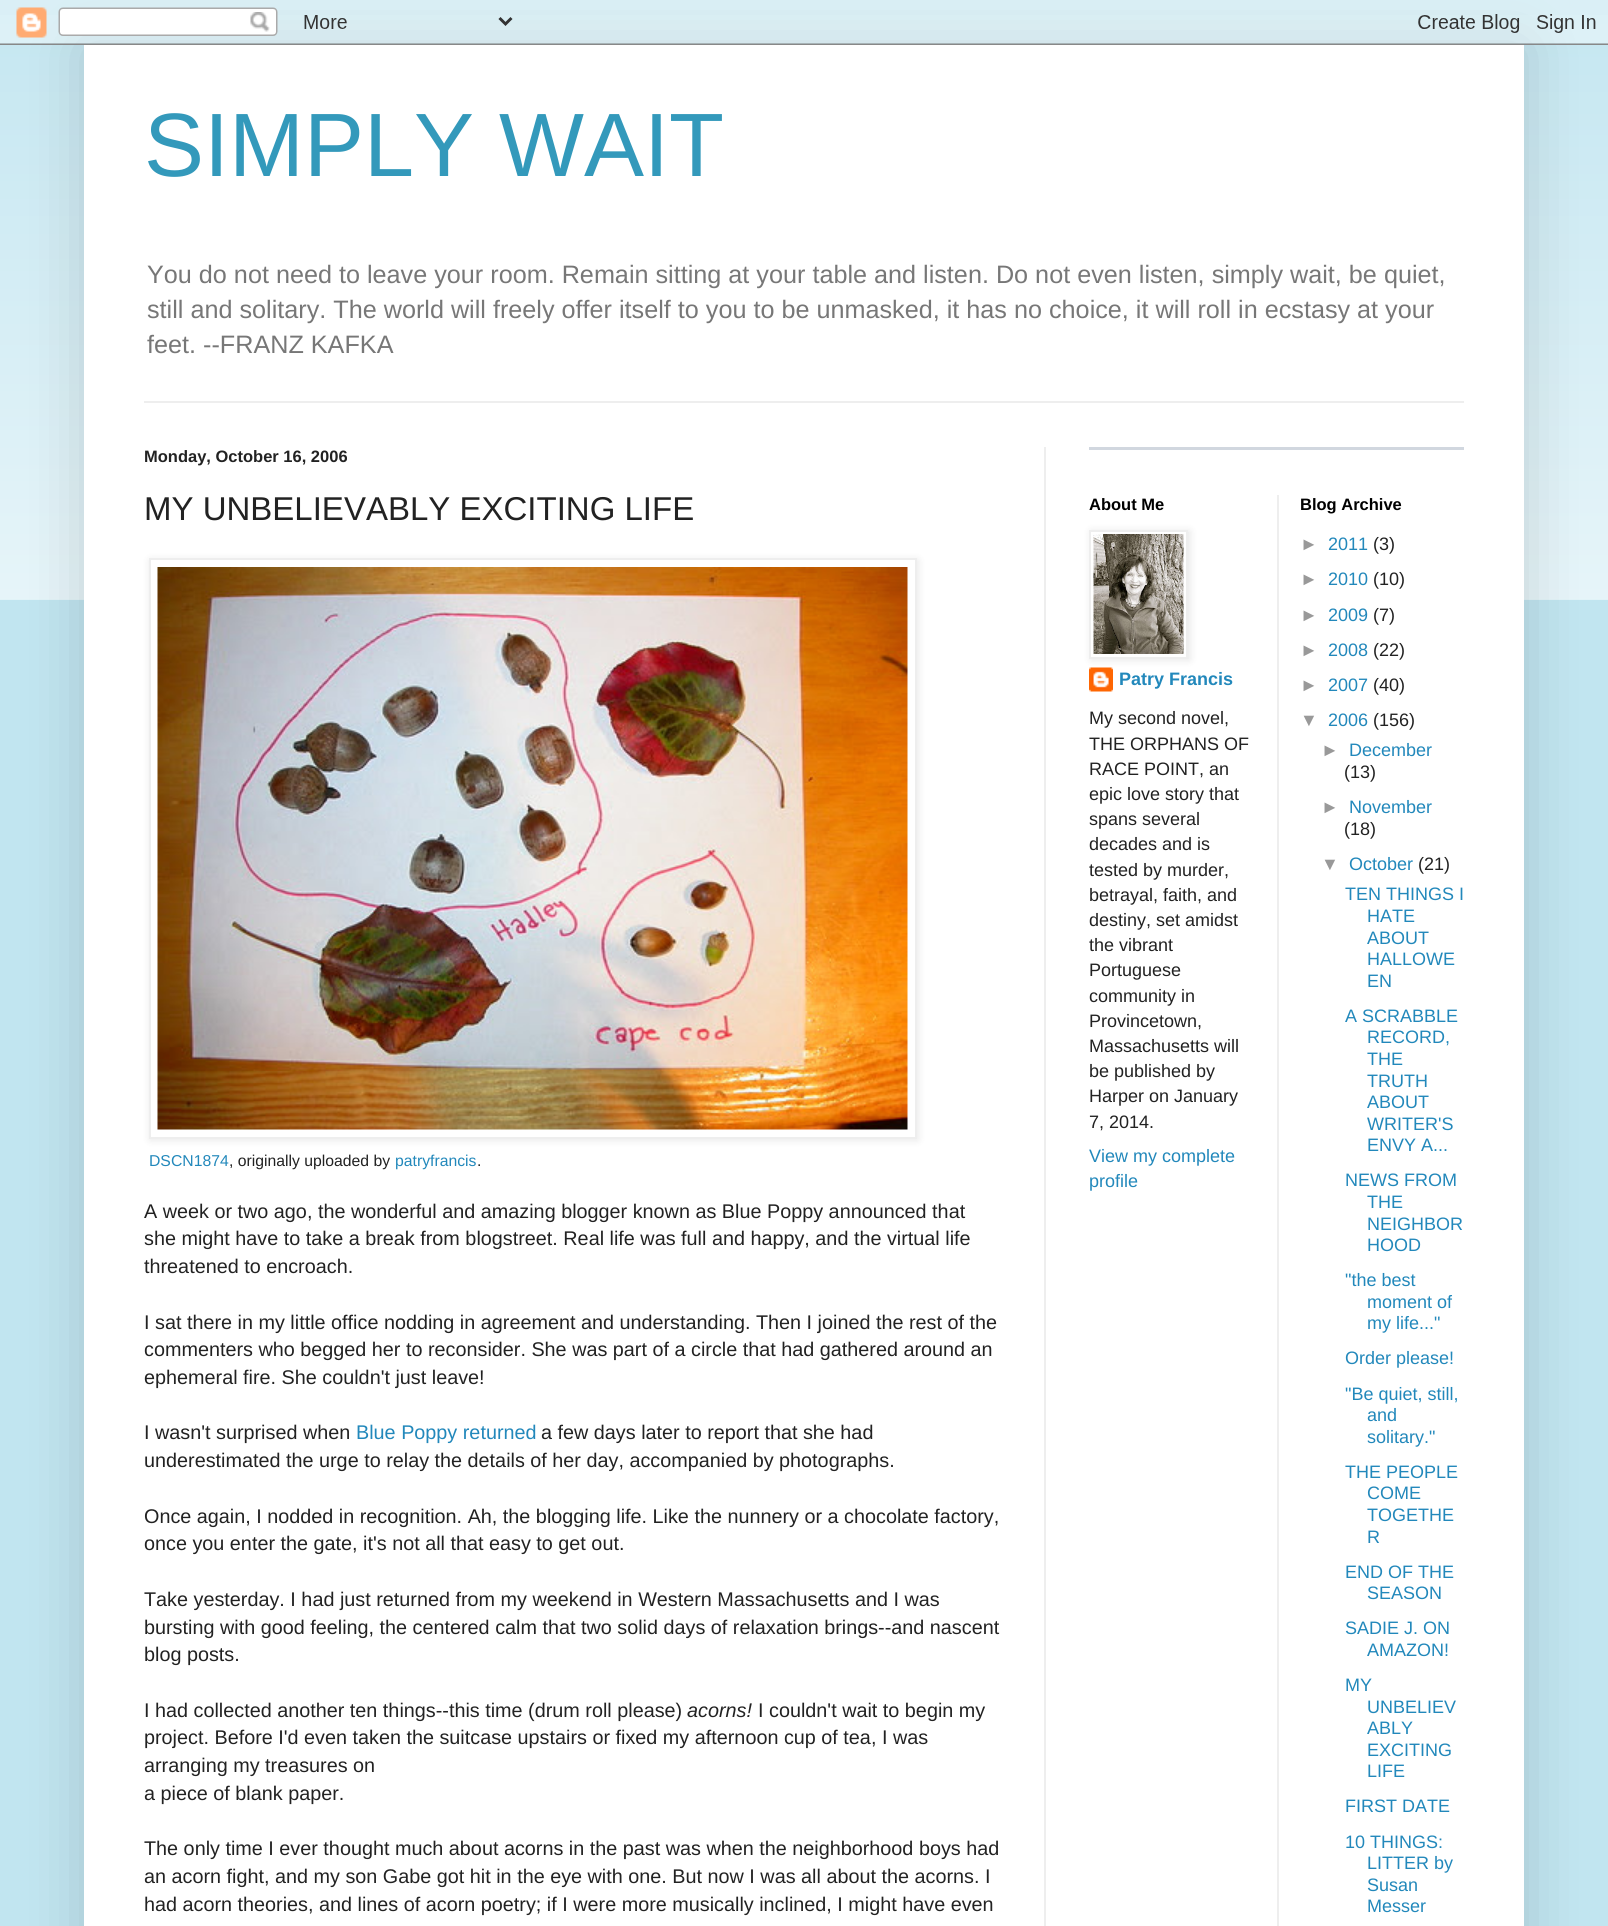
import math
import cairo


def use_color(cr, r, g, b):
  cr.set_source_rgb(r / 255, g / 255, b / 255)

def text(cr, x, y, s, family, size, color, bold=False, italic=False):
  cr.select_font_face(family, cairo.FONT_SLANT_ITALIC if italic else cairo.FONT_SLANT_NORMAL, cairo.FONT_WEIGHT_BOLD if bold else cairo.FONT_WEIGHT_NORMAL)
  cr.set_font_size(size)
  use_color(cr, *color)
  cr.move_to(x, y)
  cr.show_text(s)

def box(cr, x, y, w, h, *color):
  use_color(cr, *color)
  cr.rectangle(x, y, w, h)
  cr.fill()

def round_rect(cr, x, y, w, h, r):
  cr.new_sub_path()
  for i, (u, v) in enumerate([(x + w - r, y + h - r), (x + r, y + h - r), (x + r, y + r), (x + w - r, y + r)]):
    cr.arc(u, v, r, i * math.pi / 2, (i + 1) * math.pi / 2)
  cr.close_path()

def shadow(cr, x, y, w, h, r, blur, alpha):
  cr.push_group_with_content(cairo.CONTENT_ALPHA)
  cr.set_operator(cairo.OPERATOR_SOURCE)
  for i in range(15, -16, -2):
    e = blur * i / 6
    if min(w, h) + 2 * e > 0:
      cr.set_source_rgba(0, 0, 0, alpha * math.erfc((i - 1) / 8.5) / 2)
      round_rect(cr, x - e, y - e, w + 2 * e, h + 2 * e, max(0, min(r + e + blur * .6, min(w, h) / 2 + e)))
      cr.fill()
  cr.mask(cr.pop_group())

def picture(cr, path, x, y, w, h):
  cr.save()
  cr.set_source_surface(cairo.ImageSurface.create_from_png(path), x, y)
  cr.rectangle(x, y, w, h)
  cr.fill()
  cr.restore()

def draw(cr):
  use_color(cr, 193, 229, 240)
  cr.paint()
  picture(cr, "img_02.png", 0, 15, 1608, 585)
  use_color(cr, 0, 0, 0)
  shadow(cr, 84, 45, 1440, 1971, 0, 30, 0.15)
  picture(cr, "img_01.png", 0, 0, 1608, 45)
  box(cr, 84, 45, 1440, 1881, 255, 255, 255)
  box(cr, 144, 401, 1320, 2, 238, 238, 238)
  box(cr, 1044, 447, 2, 1479, 238, 238, 238)
  use_color(cr, 0, 0, 0)
  shadow(cr, 150, 560, 768, 580, 0, 4, 0.1)
  use_color(cr, 255, 255, 255)
  cr.rectangle(150, 559, 766, 579)
  cr.fill_preserve()
  use_color(cr, 238, 238, 238)
  cr.stroke()
  picture(cr, "img_03.png", 157, 567, 751, 563)
  box(cr, 1089, 447, 375, 3, 209, 215, 223)
  picture(cr, "img_05.png", 1089, 667, 24, 25)
  use_color(cr, 0, 0, 0)
  shadow(cr, 1091, 531, 99, 129, 0, 4, 0.1)
  use_color(cr, 255, 255, 255)
  cr.rectangle(1090, 531, 97, 127)
  cr.fill_preserve()
  use_color(cr, 238, 238, 238)
  cr.stroke()
  picture(cr, "img_04.png", 1093, 534, 91, 120)
  box(cr, 1277, 495, 2, 1431, 238, 238, 238)
  text(cr, 144, 176, "SIMPLY WAIT", "Liberation Sans", 90, (51, 153, 187))
  text(cr, 147, 283, "You do not need to leave your room. Remain sitting at your table and listen. Do not even listen, simply wait, be quiet,", "Liberation Sans", 25.2, (119, 119, 119))
  text(cr, 147, 318, "still and solitary. The world will freely offer itself to you to be unmasked, it has no choice, it will roll in ecstasy at your", "Liberation Sans", 25.2, (119, 119, 119))
  text(cr, 147, 353, "feet. --FRANZ KAFKA", "Liberation Sans", 25.2, (119, 119, 119))
  text(cr, 144, 462, "Monday, October 16, 2006", "Liberation Sans", 16.5, (34, 34, 34), bold=True)
  text(cr, 144, 520, "MY UNBELIEVABLY EXCITING LIFE", "Liberation Sans", 33, (34, 34, 34))
  text(cr, 149, 1166, "DSCN1874", "Liberation Sans", 15.75, (34, 136, 187))
  text(cr, 229, 1166, ", originally uploaded by", "Liberation Sans", 15.75, (34, 34, 34))
  text(cr, 395, 1166, "patryfrancis", "Liberation Sans", 15.75, (34, 136, 187))
  text(cr, 477, 1166, ".", "Liberation Sans", 15.75, (34, 34, 34))
  text(cr, 144, 1218, "A week or two ago, the wonderful and amazing blogger known as Blue Poppy announced that", "Liberation Sans", 19.8, (34, 34, 34))
  text(cr, 144, 1245, "she might have to take a break from blogstreet. Real life was full and happy, and the virtual life", "Liberation Sans", 19.8, (34, 34, 34))
  text(cr, 144, 1273, "threatened to encroach.", "Liberation Sans", 19.8, (34, 34, 34))
  text(cr, 144, 1329, "I sat there in my little office nodding in agreement and understanding. Then I joined the rest of the", "Liberation Sans", 19.8, (34, 34, 34))
  text(cr, 144, 1356, "commenters who begged her to reconsider. She was part of a circle that had gathered around an", "Liberation Sans", 19.8, (34, 34, 34))
  text(cr, 144, 1384, "ephemeral fire. She couldn't just leave!", "Liberation Sans", 19.8, (34, 34, 34))
  text(cr, 144, 1439, "I wasn't surprised when", "Liberation Sans", 19.8, (34, 34, 34))
  text(cr, 356, 1439, "Blue Poppy returned", "Liberation Sans", 19.8, (34, 136, 187))
  text(cr, 541, 1439, "a few days later to report that she had", "Liberation Sans", 19.8, (34, 34, 34))
  text(cr, 144, 1467, "underestimated the urge to relay the details of her day, accompanied by photographs.", "Liberation Sans", 19.8, (34, 34, 34))
  text(cr, 144, 1523, "Once again, I nodded in recognition. Ah, the blogging life. Like the nunnery or a chocolate factory,", "Liberation Sans", 19.8, (34, 34, 34))
  text(cr, 144, 1550, "once you enter the gate, it's not all that easy to get out.", "Liberation Sans", 19.8, (34, 34, 34))
  text(cr, 144, 1606, "Take yesterday. I had just returned from my weekend in Western Massachusetts and I was", "Liberation Sans", 19.8, (34, 34, 34))
  text(cr, 144, 1634, "bursting with good feeling, the centered calm that two solid days of relaxation brings--and nascent", "Liberation Sans", 19.8, (34, 34, 34))
  text(cr, 144, 1661, "blog posts.", "Liberation Sans", 19.8, (34, 34, 34))
  text(cr, 144, 1717, "I had collected another ten things--this time (drum roll please)", "Liberation Sans", 19.8, (34, 34, 34))
  text(cr, 687, 1717, "acorns!", "Liberation Sans", 19.8, (34, 34, 34), italic=True)
  text(cr, 758, 1717, "I couldn't wait to begin my", "Liberation Sans", 19.8, (34, 34, 34))
  text(cr, 144, 1744, "project. Before I'd even taken the suitcase upstairs or fixed my afternoon cup of tea, I was", "Liberation Sans", 19.8, (34, 34, 34))
  text(cr, 144, 1772, "arranging my treasures on", "Liberation Sans", 19.8, (34, 34, 34))
  text(cr, 144, 1800, "a piece of blank paper.", "Liberation Sans", 19.8, (34, 34, 34))
  text(cr, 144, 1855, "The only time I ever thought much about acorns in the past was when the neighborhood boys had", "Liberation Sans", 19.8, (34, 34, 34))
  text(cr, 144, 1883, "an acorn fight, and my son Gabe got hit in the eye with one. But now I was all about the acorns. I", "Liberation Sans", 19.8, (34, 34, 34))
  text(cr, 144, 1911, "had acorn theories, and lines of acorn poetry; if I were more musically inclined, I might have even", "Liberation Sans", 19.8, (34, 34, 34))
  text(cr, 1089, 510, "About Me", "Liberation Sans", 16.5, (0, 0, 0), bold=True)
  text(cr, 1119, 685, "Patry Francis", "Liberation Sans", 18, (34, 136, 187), bold=True)
  text(cr, 1089, 724, "My second novel,", "Liberation Sans", 18, (34, 34, 34))
  text(cr, 1089, 750, "THE ORPHANS OF", "Liberation Sans", 18, (34, 34, 34))
  text(cr, 1089, 775, "RACE POINT, an", "Liberation Sans", 18, (34, 34, 34))
  text(cr, 1089, 800, "epic love story that", "Liberation Sans", 18, (34, 34, 34))
  text(cr, 1089, 825, "spans several", "Liberation Sans", 18, (34, 34, 34))
  text(cr, 1089, 850, "decades and is", "Liberation Sans", 18, (34, 34, 34))
  text(cr, 1089, 876, "tested by murder,", "Liberation Sans", 18, (34, 34, 34))
  text(cr, 1089, 901, "betrayal, faith, and", "Liberation Sans", 18, (34, 34, 34))
  text(cr, 1089, 926, "destiny, set amidst", "Liberation Sans", 18, (34, 34, 34))
  text(cr, 1089, 951, "the vibrant", "Liberation Sans", 18, (34, 34, 34))
  text(cr, 1089, 976, "Portuguese", "Liberation Sans", 18, (34, 34, 34))
  text(cr, 1089, 1002, "community in", "Liberation Sans", 18, (34, 34, 34))
  text(cr, 1089, 1027, "Provincetown,", "Liberation Sans", 18, (34, 34, 34))
  text(cr, 1089, 1052, "Massachusetts will", "Liberation Sans", 18, (34, 34, 34))
  text(cr, 1089, 1077, "be published by", "Liberation Sans", 18, (34, 34, 34))
  text(cr, 1089, 1102, "Harper on January", "Liberation Sans", 18, (34, 34, 34))
  text(cr, 1089, 1128, "7, 2014.", "Liberation Sans", 18, (34, 34, 34))
  text(cr, 1089, 1162, "View my complete", "Liberation Sans", 18, (34, 136, 187))
  text(cr, 1089, 1187, "profile", "Liberation Sans", 18, (34, 136, 187))
  text(cr, 1300, 510, "Blog Archive", "Liberation Sans", 16.5, (0, 0, 0), bold=True)
  text(cr, 1300, 550, "►", "Liberation Sans", 18, (153, 153, 153))
  text(cr, 1328, 550, "2011", "Liberation Sans", 18, (34, 136, 187))
  text(cr, 1373, 550, "(3)", "Liberation Sans", 18, (34, 34, 34))
  text(cr, 1300, 585, "►", "Liberation Sans", 18, (153, 153, 153))
  text(cr, 1328, 585, "2010", "Liberation Sans", 18, (34, 136, 187))
  text(cr, 1373, 585, "(10)", "Liberation Sans", 18, (34, 34, 34))
  text(cr, 1300, 621, "►", "Liberation Sans", 18, (153, 153, 153))
  text(cr, 1328, 621, "2009", "Liberation Sans", 18, (34, 136, 187))
  text(cr, 1373, 621, "(7)", "Liberation Sans", 18, (34, 34, 34))
  text(cr, 1300, 656, "►", "Liberation Sans", 18, (153, 153, 153))
  text(cr, 1328, 656, "2008", "Liberation Sans", 18, (34, 136, 187))
  text(cr, 1373, 656, "(22)", "Liberation Sans", 18, (34, 34, 34))
  text(cr, 1300, 691, "►", "Liberation Sans", 18, (153, 153, 153))
  text(cr, 1328, 691, "2007", "Liberation Sans", 18, (34, 136, 187))
  text(cr, 1373, 691, "(40)", "Liberation Sans", 18, (34, 34, 34))
  text(cr, 1300, 726, "▼", "Liberation Sans", 18, (153, 153, 153))
  text(cr, 1328, 726, "2006", "Liberation Sans", 18, (34, 136, 187))
  text(cr, 1373, 726, "(156)", "Liberation Sans", 18, (34, 34, 34))
  text(cr, 1321, 756, "►", "Liberation Sans", 18, (153, 153, 153))
  text(cr, 1349, 756, "December", "Liberation Sans", 18, (34, 136, 187))
  text(cr, 1344, 778, "(13)", "Liberation Sans", 18, (34, 34, 34))
  text(cr, 1321, 813, "►", "Liberation Sans", 18, (153, 153, 153))
  text(cr, 1349, 813, "November", "Liberation Sans", 18, (34, 136, 187))
  text(cr, 1344, 835, "(18)", "Liberation Sans", 18, (34, 34, 34))
  text(cr, 1321, 870, "▼", "Liberation Sans", 18, (153, 153, 153))
  text(cr, 1349, 870, "October", "Liberation Sans", 18, (34, 136, 187))
  text(cr, 1418, 870, "(21)", "Liberation Sans", 18, (34, 34, 34))
  text(cr, 1345, 900, "TEN THINGS I", "Liberation Sans", 18, (34, 136, 187))
  text(cr, 1367, 922, "HATE", "Liberation Sans", 18, (34, 136, 187))
  text(cr, 1367, 944, "ABOUT", "Liberation Sans", 18, (34, 136, 187))
  text(cr, 1367, 965, "HALLOWE", "Liberation Sans", 18, (34, 136, 187))
  text(cr, 1367, 987, "EN", "Liberation Sans", 18, (34, 136, 187))
  text(cr, 1345, 1022, "A SCRABBLE", "Liberation Sans", 18, (34, 136, 187))
  text(cr, 1367, 1043, "RECORD,", "Liberation Sans", 18, (34, 136, 187))
  text(cr, 1367, 1065, "THE", "Liberation Sans", 18, (34, 136, 187))
  text(cr, 1367, 1087, "TRUTH", "Liberation Sans", 18, (34, 136, 187))
  text(cr, 1367, 1108, "ABOUT", "Liberation Sans", 18, (34, 136, 187))
  text(cr, 1367, 1130, "WRITER'S", "Liberation Sans", 18, (34, 136, 187))
  text(cr, 1367, 1151, "ENVY A...", "Liberation Sans", 18, (34, 136, 187))
  text(cr, 1345, 1186, "NEWS FROM", "Liberation Sans", 18, (34, 136, 187))
  text(cr, 1367, 1208, "THE", "Liberation Sans", 18, (34, 136, 187))
  text(cr, 1367, 1230, "NEIGHBOR", "Liberation Sans", 18, (34, 136, 187))
  text(cr, 1367, 1251, "HOOD", "Liberation Sans", 18, (34, 136, 187))
  text(cr, 1345, 1286, "\"the best", "Liberation Sans", 18, (34, 136, 187))
  text(cr, 1367, 1308, "moment of", "Liberation Sans", 18, (34, 136, 187))
  text(cr, 1367, 1329, "my life...\"", "Liberation Sans", 18, (34, 136, 187))
  text(cr, 1345, 1364, "Order please!", "Liberation Sans", 18, (34, 136, 187))
  text(cr, 1345, 1400, "\"Be quiet, still,", "Liberation Sans", 18, (34, 136, 187))
  text(cr, 1367, 1421, "and", "Liberation Sans", 18, (34, 136, 187))
  text(cr, 1367, 1443, "solitary.\"", "Liberation Sans", 18, (34, 136, 187))
  text(cr, 1345, 1478, "THE PEOPLE", "Liberation Sans", 18, (34, 136, 187))
  text(cr, 1367, 1499, "COME", "Liberation Sans", 18, (34, 136, 187))
  text(cr, 1367, 1521, "TOGETHE", "Liberation Sans", 18, (34, 136, 187))
  text(cr, 1367, 1543, "R", "Liberation Sans", 18, (34, 136, 187))
  text(cr, 1345, 1578, "END OF THE", "Liberation Sans", 18, (34, 136, 187))
  text(cr, 1367, 1599, "SEASON", "Liberation Sans", 18, (34, 136, 187))
  text(cr, 1345, 1634, "SADIE J. ON", "Liberation Sans", 18, (34, 136, 187))
  text(cr, 1367, 1656, "AMAZON!", "Liberation Sans", 18, (34, 136, 187))
  text(cr, 1345, 1691, "MY", "Liberation Sans", 18, (34, 136, 187))
  text(cr, 1367, 1713, "UNBELIEV", "Liberation Sans", 18, (34, 136, 187))
  text(cr, 1367, 1734, "ABLY", "Liberation Sans", 18, (34, 136, 187))
  text(cr, 1367, 1756, "EXCITING", "Liberation Sans", 18, (34, 136, 187))
  text(cr, 1367, 1777, "LIFE", "Liberation Sans", 18, (34, 136, 187))
  text(cr, 1345, 1812, "FIRST DATE", "Liberation Sans", 18, (34, 136, 187))
  text(cr, 1345, 1848, "10 THINGS:", "Liberation Sans", 18, (34, 136, 187))
  text(cr, 1367, 1869, "LITTER by", "Liberation Sans", 18, (34, 136, 187))
  text(cr, 1367, 1891, "Susan", "Liberation Sans", 18, (34, 136, 187))
  text(cr, 1367, 1912, "Messer", "Liberation Sans", 18, (34, 136, 187))


surface = cairo.ImageSurface(cairo.FORMAT_RGB24, 1608, 1926)
cr = cairo.Context(surface)
options = cairo.FontOptions()
options.set_hint_metrics(cairo.HINT_METRICS_OFF)
options.set_hint_style(cairo.HINT_STYLE_NONE)
cr.set_font_options(options)
cr.set_miter_limit(4)
draw(cr)
surface.write_to_png("out.png")
